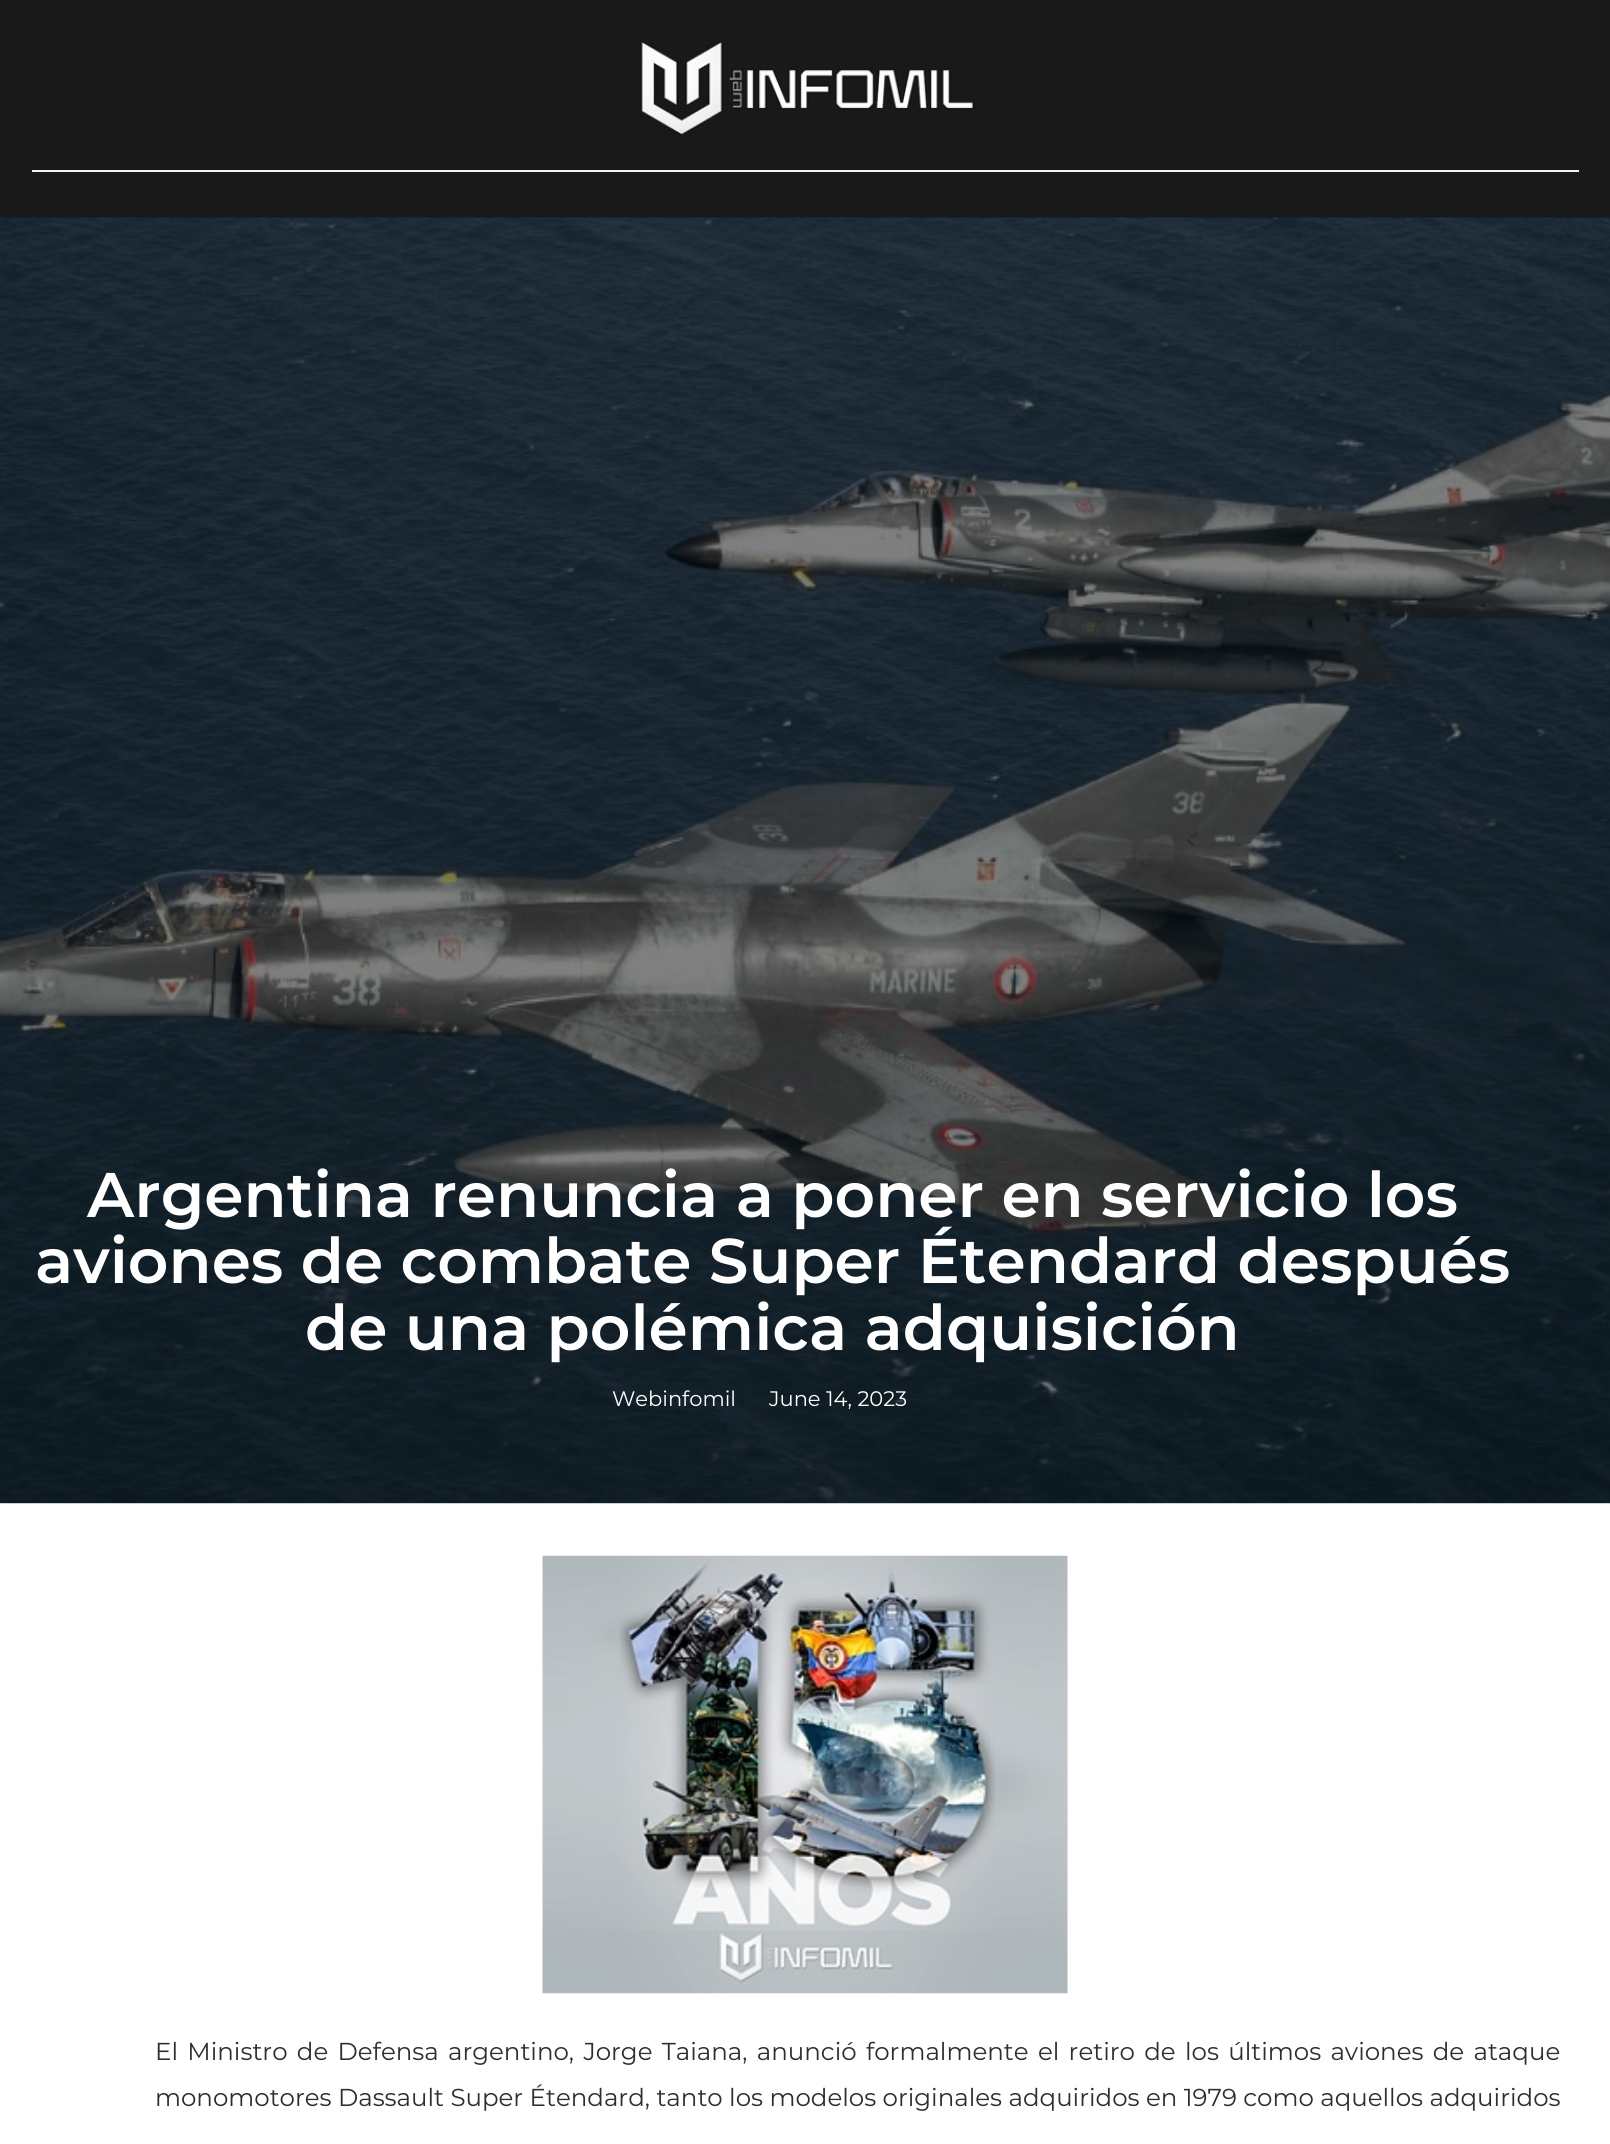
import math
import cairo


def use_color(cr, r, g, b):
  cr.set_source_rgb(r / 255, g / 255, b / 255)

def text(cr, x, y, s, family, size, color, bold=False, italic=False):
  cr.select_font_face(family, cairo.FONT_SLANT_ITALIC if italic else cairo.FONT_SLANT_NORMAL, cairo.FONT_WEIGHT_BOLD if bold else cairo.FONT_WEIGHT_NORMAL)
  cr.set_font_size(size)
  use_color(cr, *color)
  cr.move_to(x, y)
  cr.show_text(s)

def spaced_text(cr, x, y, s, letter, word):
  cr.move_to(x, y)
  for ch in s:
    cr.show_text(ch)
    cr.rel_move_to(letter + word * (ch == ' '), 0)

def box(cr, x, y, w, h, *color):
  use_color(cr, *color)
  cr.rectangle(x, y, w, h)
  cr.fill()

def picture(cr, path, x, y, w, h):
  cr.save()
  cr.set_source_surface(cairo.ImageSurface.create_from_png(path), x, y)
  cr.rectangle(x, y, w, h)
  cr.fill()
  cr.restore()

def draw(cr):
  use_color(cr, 255, 255, 255)
  cr.paint()
  box(cr, 0, 0, 1610, 217, 25, 25, 25)
  box(cr, 32, 170, 1547, 2, 240, 241, 242)
  picture(cr, "img_01.png", 640, 41, 340, 94)
  picture(cr, "img_02.png", 0, 217, 1610, 1287)
  picture(cr, "img_03.png", 542, 1555, 526, 439)
  text(cr, 87, 1217, "Argentina renuncia a poner en servicio los", "Montserrat SemiBold", 63, (255, 255, 255))
  text(cr, 35, 1283, "aviones de combate Super Étendard después", "Montserrat SemiBold", 63, (255, 255, 255))
  text(cr, 305, 1350, "de una polémica adquisición", "Montserrat SemiBold", 63, (255, 255, 255))
  text(cr, 612, 1406, "Webinfomil", "Montserrat", 21, (255, 255, 255))
  text(cr, 769, 1406, "June 14, 2023", "Montserrat", 21, (255, 255, 255))
  cr.set_font_size(24.5)
  use_color(cr, 46, 46, 46)
  spaced_text(cr, 155, 2060, "El Ministro de Defensa argentino, Jorge Taiana, anunció formalmente el retiro de los últimos aviones de ataque", 0, 2.9)
  text(cr, 155, 2106, "monomotores Dassault Super Étendard, tanto los modelos originales adquiridos en 1979 como aquellos adquiridos", "Montserrat", 24.5, (46, 46, 46))


surface = cairo.ImageSurface(cairo.FORMAT_RGB24, 1610, 2144)
cr = cairo.Context(surface)
options = cairo.FontOptions()
options.set_hint_metrics(cairo.HINT_METRICS_OFF)
options.set_hint_style(cairo.HINT_STYLE_NONE)
cr.set_font_options(options)
cr.set_miter_limit(4)
draw(cr)
surface.write_to_png("out.png")
